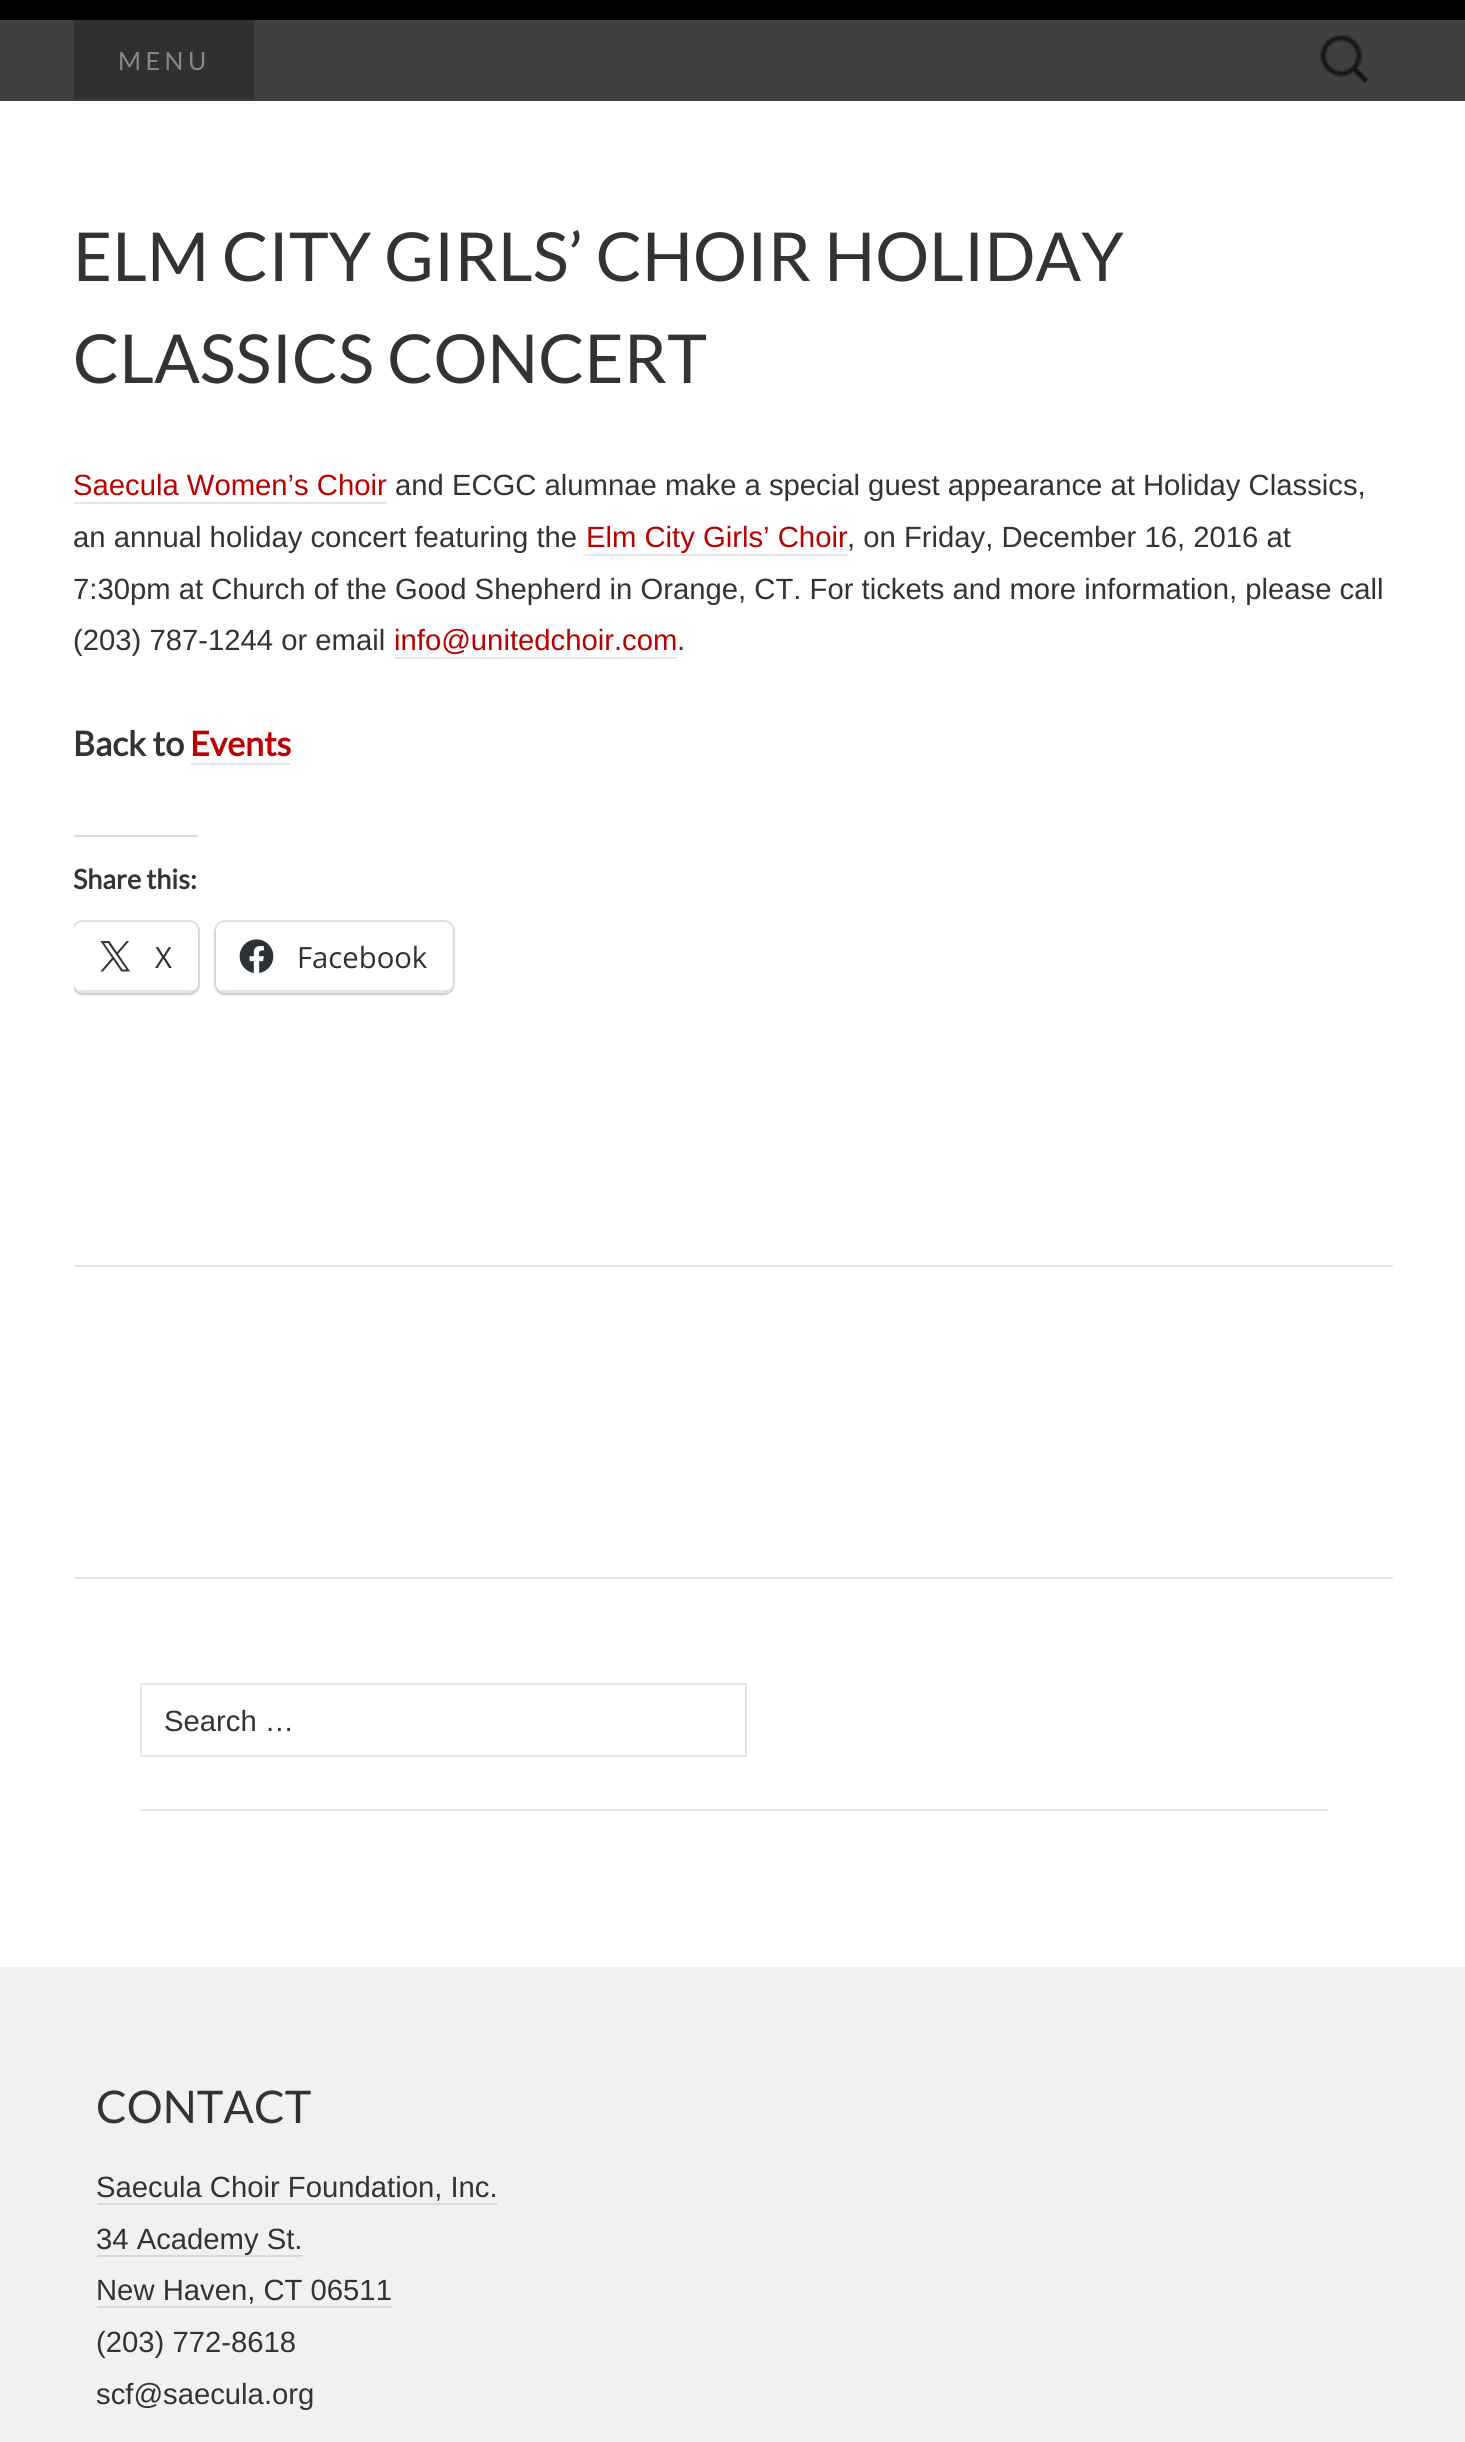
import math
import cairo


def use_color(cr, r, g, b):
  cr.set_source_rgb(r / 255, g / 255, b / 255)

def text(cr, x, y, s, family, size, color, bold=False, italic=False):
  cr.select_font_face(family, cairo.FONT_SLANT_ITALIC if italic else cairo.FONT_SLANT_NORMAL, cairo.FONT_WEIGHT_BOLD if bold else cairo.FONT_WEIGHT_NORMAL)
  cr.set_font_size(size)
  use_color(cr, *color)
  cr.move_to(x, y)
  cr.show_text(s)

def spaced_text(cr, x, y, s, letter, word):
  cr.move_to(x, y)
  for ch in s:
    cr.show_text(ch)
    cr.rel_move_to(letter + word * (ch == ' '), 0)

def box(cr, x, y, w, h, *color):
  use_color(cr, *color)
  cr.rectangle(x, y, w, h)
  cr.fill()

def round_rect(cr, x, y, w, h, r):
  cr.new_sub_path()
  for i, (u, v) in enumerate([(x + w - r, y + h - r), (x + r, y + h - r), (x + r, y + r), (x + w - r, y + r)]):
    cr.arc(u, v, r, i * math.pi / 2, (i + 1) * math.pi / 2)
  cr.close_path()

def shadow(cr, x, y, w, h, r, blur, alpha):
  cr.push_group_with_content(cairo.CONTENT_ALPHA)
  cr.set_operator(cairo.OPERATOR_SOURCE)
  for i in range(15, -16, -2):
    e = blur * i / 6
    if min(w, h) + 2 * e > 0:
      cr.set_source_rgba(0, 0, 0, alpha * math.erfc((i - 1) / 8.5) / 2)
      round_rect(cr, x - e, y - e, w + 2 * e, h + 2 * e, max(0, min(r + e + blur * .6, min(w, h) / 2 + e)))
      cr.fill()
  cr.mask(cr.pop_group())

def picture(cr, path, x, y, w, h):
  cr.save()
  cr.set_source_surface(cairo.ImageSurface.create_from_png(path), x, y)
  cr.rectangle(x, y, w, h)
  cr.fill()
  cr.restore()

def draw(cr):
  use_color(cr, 255, 255, 255)
  cr.paint()
  box(cr, 0, 0, 1465, 20, 0, 0, 0)
  box(cr, 0, 20, 1465, 81, 64, 64, 64)
  box(cr, 74, 20, 180, 79, 48, 48, 48)
  picture(cr, "img_01.png", 1320, 35, 49, 49)
  box(cr, 74, 1577, 1319, 2, 230, 230, 230)
  box(cr, 74, 1265, 1319, 2, 230, 230, 230)
  box(cr, 74, 502, 313, 2, 230, 230, 230)
  box(cr, 585, 554, 263, 2, 230, 230, 230)
  box(cr, 394, 657, 283, 2, 230, 230, 230)
  box(cr, 191, 763, 99, 2, 230, 230, 230)
  box(cr, 74, 835, 124, 2, 220, 220, 222)
  cr.save()
  cr.rectangle(74, 101, 1319, 1866)
  cr.clip()
  round_rect(cr, 73, 921, 126, 73, 10)
  use_color(cr, 224, 224, 224)
  cr.stroke()
  cr.restore()
  cr.save()
  cr.rectangle(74, 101, 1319, 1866)
  cr.clip()
  use_color(cr, 0, 0, 0)
  shadow(cr, 74, 925, 124, 70, 9, 2, 0.12)
  cr.restore()
  use_color(cr, 255, 255, 255)
  round_rect(cr, 74, 923, 124, 69, 9)
  cr.fill()
  cr.set_source_rgba(0, 0, 0, 0.1)
  cr.rectangle(79, 990, 115, 2)
  cr.fill()
  picture(cr, "img_02.png", 100, 941, 30, 31)
  round_rect(cr, 215, 921, 239, 73, 10)
  use_color(cr, 224, 224, 224)
  cr.stroke()
  use_color(cr, 0, 0, 0)
  shadow(cr, 216, 925, 236, 70, 9, 2, 0.12)
  use_color(cr, 255, 255, 255)
  round_rect(cr, 216, 923, 236, 69, 9)
  cr.fill()
  cr.set_source_rgba(0, 0, 0, 0.1)
  cr.rectangle(221, 990, 227, 2)
  cr.fill()
  picture(cr, "img_03.png", 239, 939, 35, 34)
  box(cr, 140, 1809, 1188, 2, 230, 230, 230)
  cr.rectangle(141, 1684, 605, 72)
  cr.stroke()
  box(cr, 0, 1967, 1465, 475, 241, 241, 241)
  box(cr, 97, 2203, 400, 2, 217, 217, 217)
  box(cr, 97, 2255, 205, 2, 217, 217, 217)
  box(cr, 97, 2306, 295, 2, 217, 217, 217)
  cr.select_font_face("Lato")
  cr.set_font_size(25)
  use_color(cr, 136, 136, 136)
  spaced_text(cr, 118, 70, "MENU", 4.5, 0)
  text(cr, 73, 281, "ELM CITY GIRLS’ CHOIR HOLIDAY", "Lato", 67.5, (51, 51, 51))
  text(cr, 73, 383, "CLASSICS CONCERT", "Lato", 67.5, (51, 51, 51))
  text(cr, 73, 495, "Saecula Women’s Choir", "Liberation Sans", 29.25, (187, 0, 0))
  text(cr, 395, 495, "and ECGC alumnae make a special guest appearance at Holiday Classics,", "Liberation Sans", 29.25, (51, 51, 51))
  text(cr, 73, 547, "an annual holiday concert featuring the", "Liberation Sans", 29.25, (51, 51, 51))
  text(cr, 586, 547, "Elm City Girls’ Choir", "Liberation Sans", 29.25, (187, 0, 0))
  text(cr, 847, 547, ", on Friday, December 16, 2016 at", "Liberation Sans", 29.25, (51, 51, 51))
  text(cr, 73, 599, "7:30pm at Church of the Good Shepherd in Orange, CT. For tickets and more information, please call", "Liberation Sans", 29.25, (51, 51, 51))
  text(cr, 73, 650, "(203) 787-1244 or email", "Liberation Sans", 29.25, (51, 51, 51))
  text(cr, 394, 650, "info@unitedchoir.com", "Liberation Sans", 29.25, (187, 0, 0))
  text(cr, 677, 650, ".", "Liberation Sans", 29.25, (51, 51, 51))
  text(cr, 73, 756, "Back to", "Lato", 34, (51, 51, 51), bold=True)
  text(cr, 190, 756, "Events", "Lato", 34, (187, 0, 0), bold=True)
  text(cr, 73, 889, "Share this:", "Lato", 27, (51, 51, 51), bold=True)
  text(cr, 155, 968, "X", "Open Sans", 29.25, (44, 51, 56))
  text(cr, 297, 968, "Facebook", "Open Sans", 29.25, (44, 51, 56))
  text(cr, 164, 1731, "Search …", "Liberation Sans", 29.25, (51, 51, 51))
  text(cr, 96, 2123, "CONTACT", "Lato", 45, (51, 51, 51))
  text(cr, 96, 2197, "Saecula Choir Foundation, Inc.", "Liberation Sans", 29.25, (51, 51, 51))
  text(cr, 96, 2249, "34 Academy St.", "Liberation Sans", 29.25, (51, 51, 51))
  text(cr, 96, 2300, "New Haven, CT 06511", "Liberation Sans", 29.25, (51, 51, 51))
  text(cr, 96, 2352, "(203) 772-8618", "Liberation Sans", 29.25, (51, 51, 51))
  text(cr, 96, 2404, "scf@saecula.org", "Liberation Sans", 29.25, (51, 51, 51))


surface = cairo.ImageSurface(cairo.FORMAT_RGB24, 1465, 2442)
cr = cairo.Context(surface)
options = cairo.FontOptions()
options.set_hint_metrics(cairo.HINT_METRICS_OFF)
options.set_hint_style(cairo.HINT_STYLE_NONE)
cr.set_font_options(options)
cr.set_miter_limit(4)
draw(cr)
surface.write_to_png("out.png")
